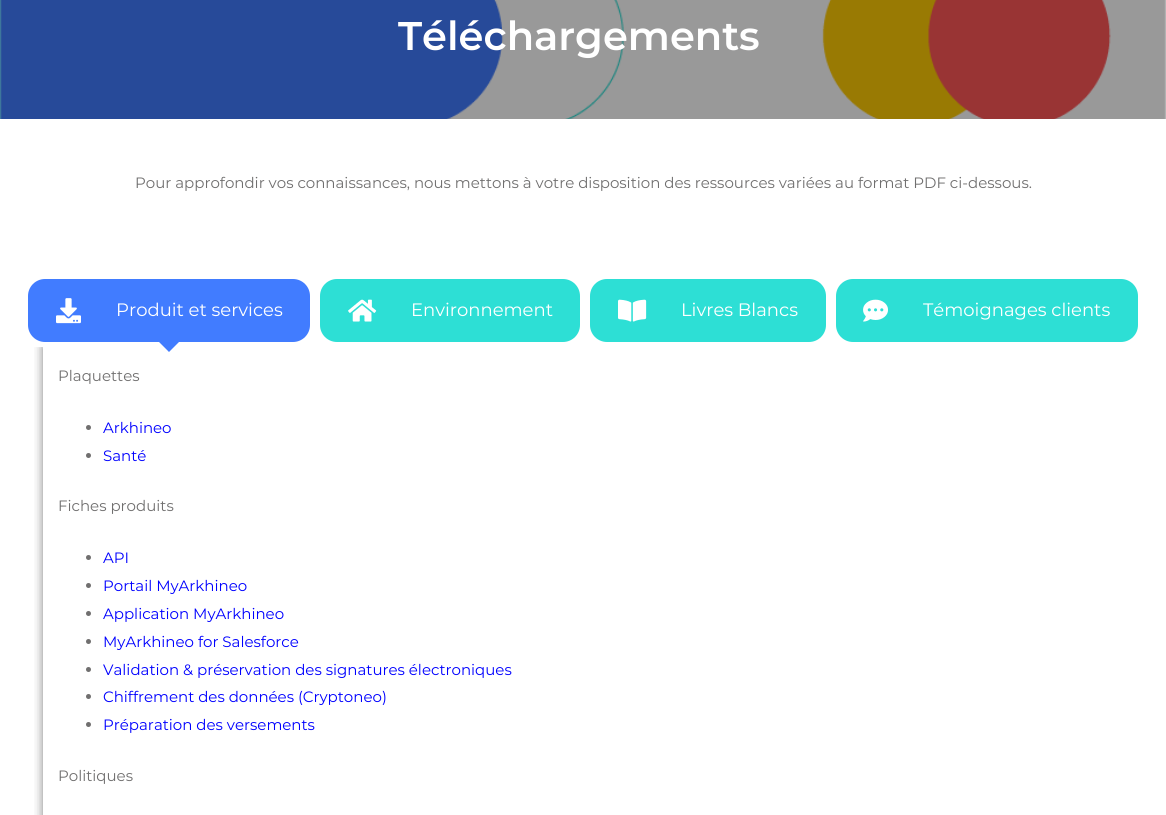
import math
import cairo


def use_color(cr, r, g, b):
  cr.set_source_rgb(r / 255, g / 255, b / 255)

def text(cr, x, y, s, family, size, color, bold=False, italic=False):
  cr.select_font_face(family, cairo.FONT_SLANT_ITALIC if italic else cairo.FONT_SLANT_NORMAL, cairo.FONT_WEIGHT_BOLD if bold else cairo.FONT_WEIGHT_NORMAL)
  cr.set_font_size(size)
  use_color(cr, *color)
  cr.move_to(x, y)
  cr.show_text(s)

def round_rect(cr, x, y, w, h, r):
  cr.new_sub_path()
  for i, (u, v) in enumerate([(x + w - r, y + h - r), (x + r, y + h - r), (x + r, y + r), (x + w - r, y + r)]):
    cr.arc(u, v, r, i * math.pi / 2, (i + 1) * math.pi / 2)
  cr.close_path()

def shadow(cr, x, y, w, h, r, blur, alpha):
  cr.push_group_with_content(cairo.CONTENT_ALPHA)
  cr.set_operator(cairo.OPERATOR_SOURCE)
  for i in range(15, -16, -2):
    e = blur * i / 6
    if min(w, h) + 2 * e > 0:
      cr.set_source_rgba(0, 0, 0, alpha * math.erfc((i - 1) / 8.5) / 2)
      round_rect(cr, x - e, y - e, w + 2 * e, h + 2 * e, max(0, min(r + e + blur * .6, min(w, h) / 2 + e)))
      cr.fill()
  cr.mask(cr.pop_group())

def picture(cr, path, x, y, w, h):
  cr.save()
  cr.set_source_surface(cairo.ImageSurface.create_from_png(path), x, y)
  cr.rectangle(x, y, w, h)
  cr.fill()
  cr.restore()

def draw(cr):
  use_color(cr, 255, 255, 255)
  cr.paint()
  picture(cr, "img_01.png", 0, 0, 1166, 119)
  cr.save()
  cr.rectangle(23, 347, 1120, 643)
  cr.clip()
  cr.rectangle(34, 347, 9, 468)
  cr.clip()
  use_color(cr, 0, 0, 0)
  shadow(cr, 43, 347, 1100, 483, 0, 5, 0.5)
  cr.restore()
  use_color(cr, 65, 124, 255)
  round_rect(cr, 28, 279, 282, 63, 17)
  cr.fill()
  picture(cr, "img_02.png", 56, 298, 25, 26)
  cr.new_path()
  cr.move_to(159, 342)
  cr.line_to(179, 342)
  cr.line_to(169, 352)
  cr.close_path()
  cr.fill()
  use_color(cr, 45, 223, 213)
  round_rect(cr, 320, 279, 260, 63, 17)
  cr.fill()
  picture(cr, "img_03.png", 348, 299, 29, 23)
  round_rect(cr, 590, 279, 236, 63, 17)
  cr.fill()
  picture(cr, "img_04.png", 618, 299, 29, 23)
  round_rect(cr, 836, 279, 302, 63, 17)
  cr.fill()
  picture(cr, "img_05.png", 863, 299, 25, 23)
  use_color(cr, 112, 111, 111)
  cr.arc(88.5, 427.5, 2.5, 0, 2 * math.pi)
  cr.fill()
  cr.arc(88.5, 455.5, 2.5, 0, 2 * math.pi)
  cr.fill()
  cr.arc(88.5, 557.5, 2.5, 0, 2 * math.pi)
  cr.fill()
  cr.arc(88.5, 585.5, 2.5, 0, 2 * math.pi)
  cr.fill()
  cr.arc(88.5, 613.5, 2.5, 0, 2 * math.pi)
  cr.fill()
  cr.arc(88.5, 641.5, 2.5, 0, 2 * math.pi)
  cr.fill()
  cr.arc(88.5, 669.5, 2.5, 0, 2 * math.pi)
  cr.fill()
  cr.arc(88.5, 696.5, 2.5, 0, 2 * math.pi)
  cr.fill()
  cr.arc(88.5, 724.5, 2.5, 0, 2 * math.pi)
  cr.fill()
  text(cr, 398, 50, "Téléchargements", "Montserrat SemiBold", 40, (255, 255, 255))
  text(cr, 135, 188, "Pour approfondir vos connaissances, nous mettons à votre disposition des ressources variées au format PDF ci-dessous.", "Montserrat", 15, (112, 111, 111))
  text(cr, 116, 316, "Produit et services", "Montserrat", 18, (255, 255, 255))
  text(cr, 411, 316, "Environnement", "Montserrat", 18, (255, 255, 255))
  text(cr, 681, 316, "Livres Blancs", "Montserrat", 18, (255, 255, 255))
  text(cr, 923, 316, "Témoignages clients", "Montserrat", 18, (255, 255, 255))
  text(cr, 58, 381, "Plaquettes", "Montserrat", 15, (112, 111, 111))
  text(cr, 103, 433, "Arkhineo", "Montserrat", 15, (0, 0, 255))
  text(cr, 103, 461, "Santé", "Montserrat", 15, (0, 0, 255))
  text(cr, 58, 511, "Fiches produits", "Montserrat", 15, (112, 111, 111))
  text(cr, 103, 563, "API", "Montserrat", 15, (0, 0, 255))
  text(cr, 103, 591, "Portail MyArkhineo", "Montserrat", 15, (0, 0, 255))
  text(cr, 103, 619, "Application MyArkhineo", "Montserrat", 15, (0, 0, 255))
  text(cr, 103, 647, "MyArkhineo for Salesforce", "Montserrat", 15, (0, 0, 255))
  text(cr, 103, 675, "Validation & préservation des signatures électroniques", "Montserrat", 15, (0, 0, 255))
  text(cr, 103, 702, "Chiffrement des données (Cryptoneo)", "Montserrat", 15, (0, 0, 255))
  text(cr, 103, 730, "Préparation des versements", "Montserrat", 15, (0, 0, 255))
  text(cr, 58, 781, "Politiques", "Montserrat", 15, (112, 111, 111))


surface = cairo.ImageSurface(cairo.FORMAT_RGB24, 1166, 815)
cr = cairo.Context(surface)
options = cairo.FontOptions()
options.set_hint_metrics(cairo.HINT_METRICS_OFF)
options.set_hint_style(cairo.HINT_STYLE_NONE)
cr.set_font_options(options)
cr.set_miter_limit(4)
draw(cr)
surface.write_to_png("out.png")
